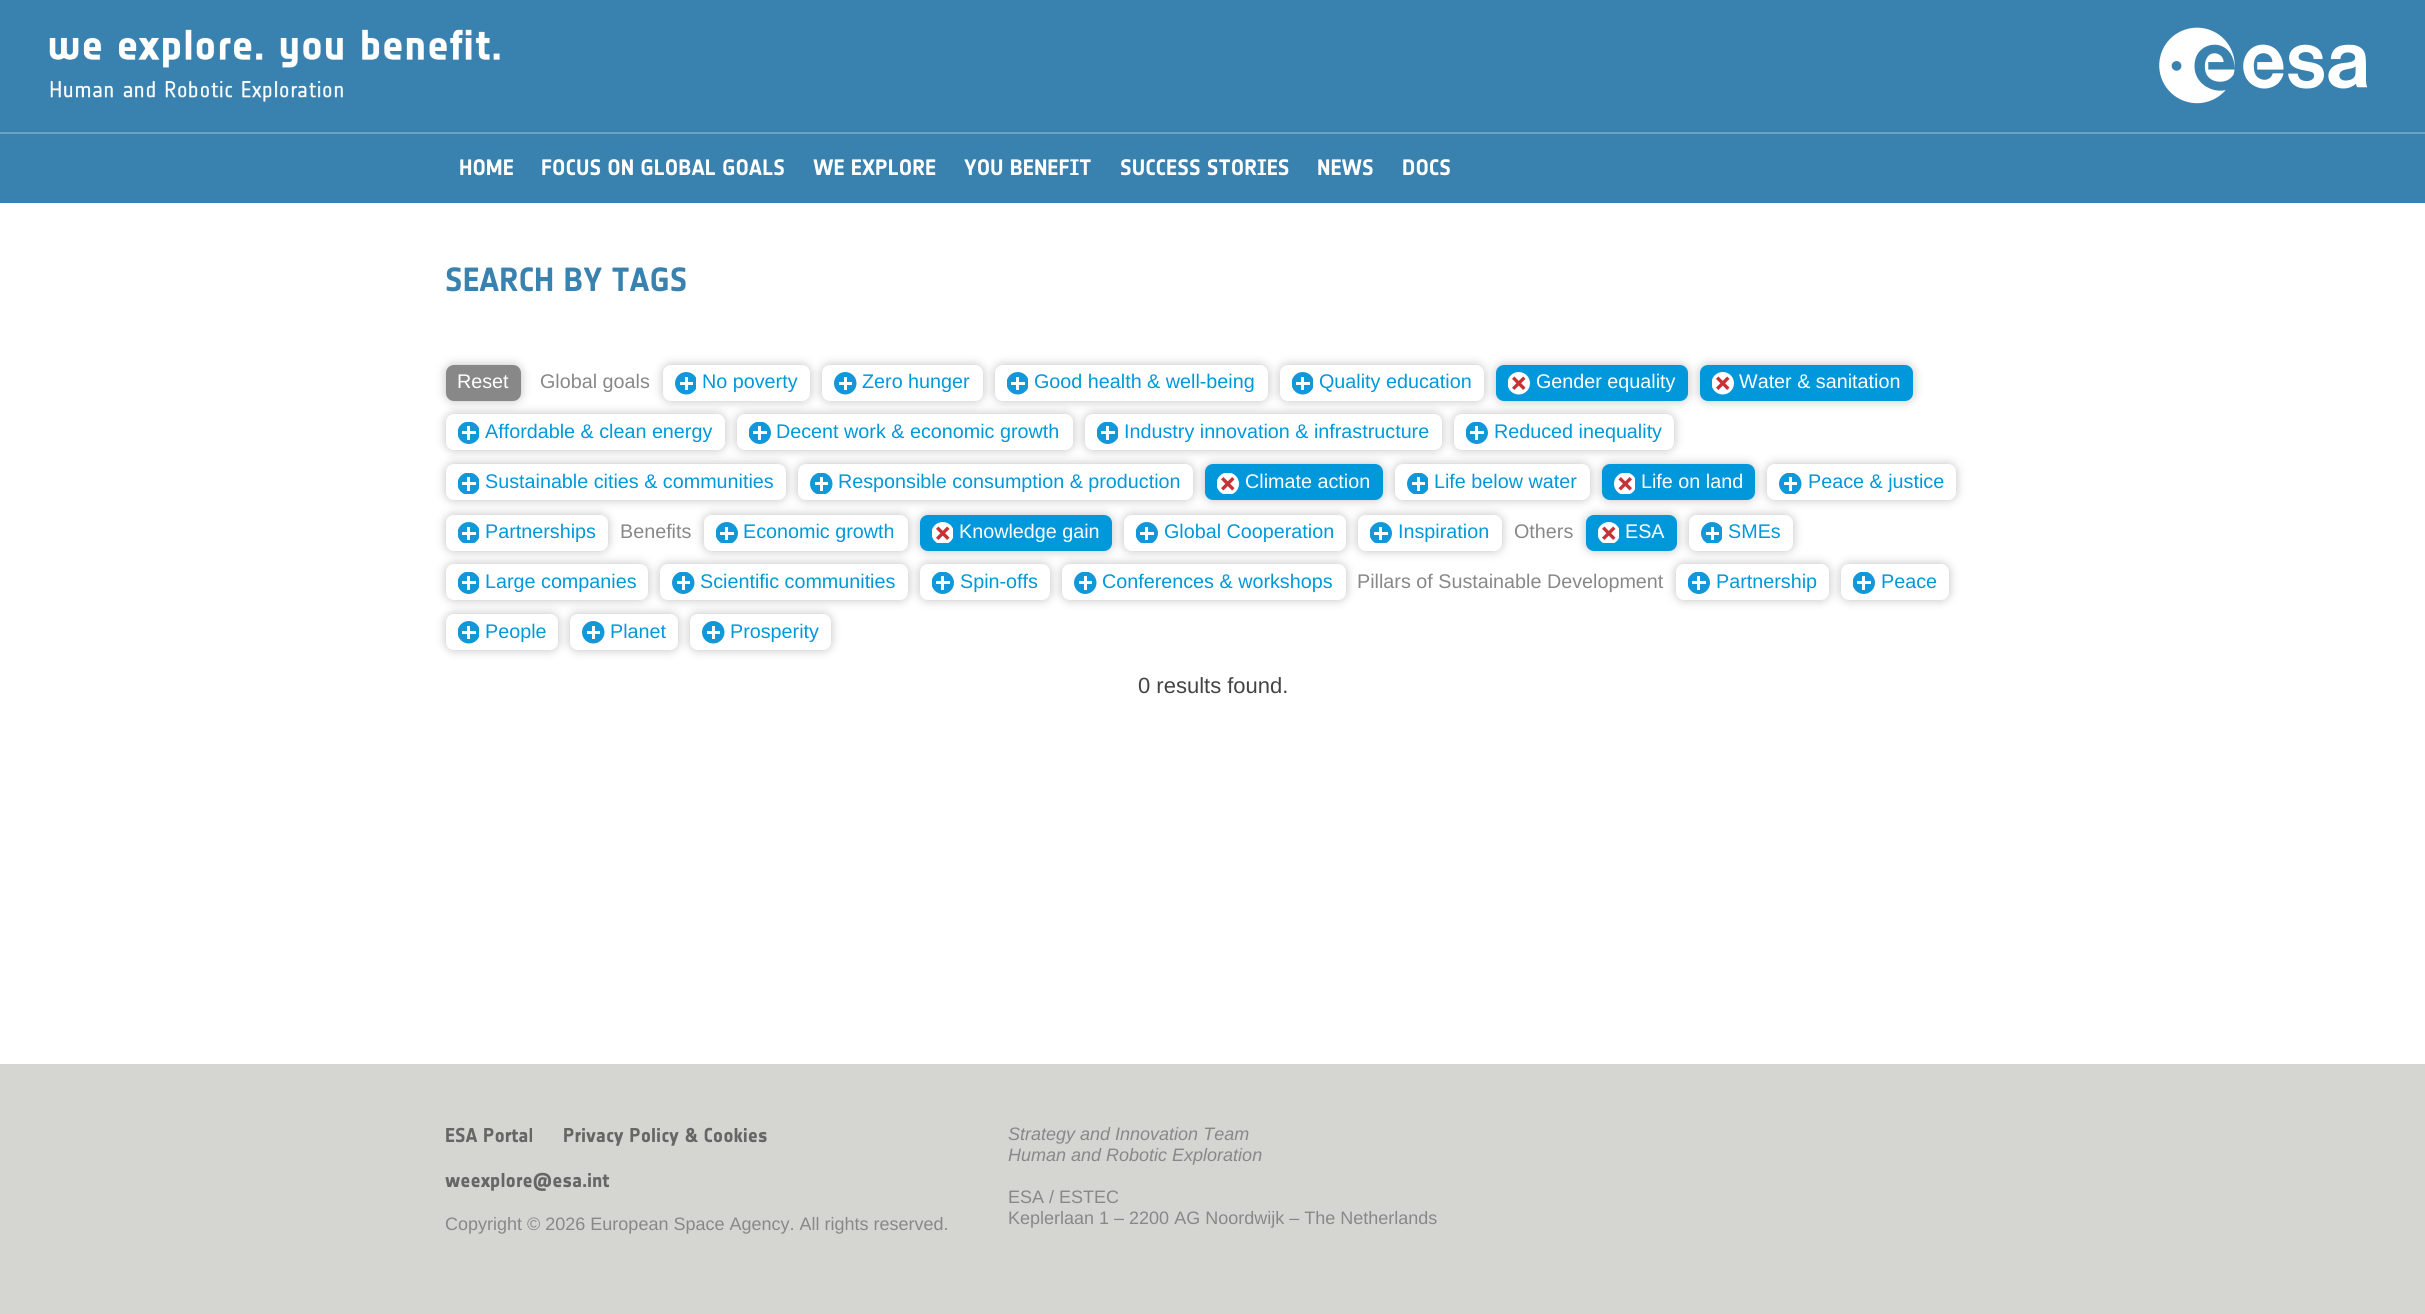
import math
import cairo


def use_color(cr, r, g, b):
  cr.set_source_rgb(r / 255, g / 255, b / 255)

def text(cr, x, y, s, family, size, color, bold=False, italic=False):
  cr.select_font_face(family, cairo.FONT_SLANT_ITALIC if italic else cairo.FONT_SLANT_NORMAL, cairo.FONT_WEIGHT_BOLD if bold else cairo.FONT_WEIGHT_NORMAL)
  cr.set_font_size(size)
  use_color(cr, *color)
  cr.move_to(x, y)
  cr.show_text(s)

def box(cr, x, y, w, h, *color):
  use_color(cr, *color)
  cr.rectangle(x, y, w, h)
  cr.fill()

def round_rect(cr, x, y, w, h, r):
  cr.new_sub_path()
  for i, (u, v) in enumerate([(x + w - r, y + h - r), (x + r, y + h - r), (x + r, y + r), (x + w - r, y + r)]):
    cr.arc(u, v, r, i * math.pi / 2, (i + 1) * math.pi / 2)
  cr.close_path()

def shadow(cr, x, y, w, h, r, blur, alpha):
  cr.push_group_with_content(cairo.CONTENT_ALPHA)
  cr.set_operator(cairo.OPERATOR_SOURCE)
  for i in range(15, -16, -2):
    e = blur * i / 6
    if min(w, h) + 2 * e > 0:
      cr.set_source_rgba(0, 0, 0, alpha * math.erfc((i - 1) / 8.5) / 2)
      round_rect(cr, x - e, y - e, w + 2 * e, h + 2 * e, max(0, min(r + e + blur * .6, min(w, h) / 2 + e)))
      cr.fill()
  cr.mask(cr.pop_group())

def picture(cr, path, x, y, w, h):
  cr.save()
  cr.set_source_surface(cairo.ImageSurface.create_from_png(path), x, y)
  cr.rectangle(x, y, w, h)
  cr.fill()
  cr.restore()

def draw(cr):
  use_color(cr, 255, 255, 255)
  cr.paint()
  box(cr, 0, 0, 2425, 132, 57, 130, 175)
  picture(cr, "img_01.png", 49, 29, 451, 73)
  picture(cr, "img_02.png", 2159, 27, 209, 77)
  box(cr, 0, 134, 2425, 69, 57, 130, 175)
  box(cr, 0, 132, 2425, 2, 107, 161, 195)
  use_color(cr, 0, 0, 0)
  shadow(cr, 446, 365, 75, 36, 8, 5, 0.25)
  use_color(cr, 136, 136, 136)
  round_rect(cr, 446, 365, 75, 36, 8)
  cr.fill()
  use_color(cr, 0, 0, 0)
  shadow(cr, 663, 365, 147, 36, 8, 5, 0.25)
  use_color(cr, 255, 255, 255)
  round_rect(cr, 663, 365, 147, 36, 8)
  cr.fill()
  picture(cr, "img_03.png", 675, 372, 21, 23)
  use_color(cr, 0, 0, 0)
  shadow(cr, 822, 365, 161, 36, 8, 5, 0.25)
  use_color(cr, 255, 255, 255)
  round_rect(cr, 822, 365, 161, 36, 8)
  cr.fill()
  picture(cr, "img_04.png", 834, 372, 23, 23)
  use_color(cr, 0, 0, 0)
  shadow(cr, 995, 365, 273, 36, 8, 5, 0.25)
  use_color(cr, 255, 255, 255)
  round_rect(cr, 995, 365, 273, 36, 8)
  cr.fill()
  picture(cr, "img_05.png", 1007, 372, 21, 23)
  use_color(cr, 0, 0, 0)
  shadow(cr, 1280, 365, 204, 36, 8, 5, 0.25)
  use_color(cr, 255, 255, 255)
  round_rect(cr, 1280, 365, 204, 36, 8)
  cr.fill()
  picture(cr, "img_05.png", 1292, 372, 21, 23)
  use_color(cr, 0, 0, 0)
  shadow(cr, 1496, 365, 192, 36, 8, 5, 0.25)
  use_color(cr, 0, 152, 219)
  round_rect(cr, 1496, 365, 192, 36, 8)
  cr.fill()
  picture(cr, "img_06.png", 1508, 372, 22, 23)
  use_color(cr, 0, 0, 0)
  shadow(cr, 1700, 365, 213, 36, 8, 5, 0.25)
  use_color(cr, 0, 152, 219)
  round_rect(cr, 1700, 365, 213, 36, 8)
  cr.fill()
  picture(cr, "img_06.png", 1712, 372, 22, 23)
  use_color(cr, 0, 0, 0)
  shadow(cr, 446, 414, 279, 36, 8, 5, 0.25)
  use_color(cr, 255, 255, 255)
  round_rect(cr, 446, 414, 279, 36, 8)
  cr.fill()
  picture(cr, "img_07.png", 458, 422, 21, 22)
  use_color(cr, 0, 0, 0)
  shadow(cr, 737, 414, 336, 36, 8, 5, 0.25)
  use_color(cr, 255, 255, 255)
  round_rect(cr, 737, 414, 336, 36, 8)
  cr.fill()
  picture(cr, "img_08.png", 749, 422, 22, 22)
  use_color(cr, 0, 0, 0)
  shadow(cr, 1085, 414, 357, 36, 8, 5, 0.25)
  use_color(cr, 255, 255, 255)
  round_rect(cr, 1085, 414, 357, 36, 8)
  cr.fill()
  picture(cr, "img_07.png", 1097, 422, 21, 22)
  use_color(cr, 0, 0, 0)
  shadow(cr, 1454, 414, 220, 36, 8, 5, 0.25)
  use_color(cr, 255, 255, 255)
  round_rect(cr, 1454, 414, 220, 36, 8)
  cr.fill()
  picture(cr, "img_08.png", 1466, 422, 22, 22)
  use_color(cr, 0, 0, 0)
  shadow(cr, 446, 464, 340, 36, 8, 5, 0.25)
  use_color(cr, 255, 255, 255)
  round_rect(cr, 446, 464, 340, 36, 8)
  cr.fill()
  picture(cr, "img_09.png", 458, 473, 21, 21)
  use_color(cr, 0, 0, 0)
  shadow(cr, 798, 464, 395, 36, 8, 5, 0.25)
  use_color(cr, 255, 255, 255)
  round_rect(cr, 798, 464, 395, 36, 8)
  cr.fill()
  picture(cr, "img_10.png", 810, 473, 23, 21)
  use_color(cr, 0, 0, 0)
  shadow(cr, 1205, 464, 178, 36, 8, 5, 0.25)
  use_color(cr, 0, 152, 219)
  round_rect(cr, 1205, 464, 178, 36, 8)
  cr.fill()
  picture(cr, "img_11.png", 1217, 473, 22, 21)
  use_color(cr, 0, 0, 0)
  shadow(cr, 1395, 464, 195, 36, 8, 5, 0.25)
  use_color(cr, 255, 255, 255)
  round_rect(cr, 1395, 464, 195, 36, 8)
  cr.fill()
  picture(cr, "img_12.png", 1407, 473, 21, 21)
  use_color(cr, 0, 0, 0)
  shadow(cr, 1602, 464, 153, 36, 8, 5, 0.25)
  use_color(cr, 0, 152, 219)
  round_rect(cr, 1602, 464, 153, 36, 8)
  cr.fill()
  picture(cr, "img_13.png", 1614, 473, 21, 21)
  use_color(cr, 0, 0, 0)
  shadow(cr, 1767, 464, 189, 36, 8, 5, 0.25)
  use_color(cr, 255, 255, 255)
  round_rect(cr, 1767, 464, 189, 36, 8)
  cr.fill()
  picture(cr, "img_10.png", 1779, 473, 23, 21)
  use_color(cr, 0, 0, 0)
  shadow(cr, 446, 515, 162, 36, 8, 5, 0.25)
  use_color(cr, 255, 255, 255)
  round_rect(cr, 446, 515, 162, 36, 8)
  cr.fill()
  picture(cr, "img_14.png", 458, 522, 21, 21)
  use_color(cr, 0, 0, 0)
  shadow(cr, 704, 515, 204, 36, 8, 5, 0.25)
  use_color(cr, 255, 255, 255)
  round_rect(cr, 704, 515, 204, 36, 8)
  cr.fill()
  picture(cr, "img_15.png", 716, 522, 22, 21)
  use_color(cr, 0, 0, 0)
  shadow(cr, 920, 515, 192, 36, 8, 5, 0.25)
  use_color(cr, 0, 152, 219)
  round_rect(cr, 920, 515, 192, 36, 8)
  cr.fill()
  picture(cr, "img_16.png", 932, 522, 21, 21)
  use_color(cr, 0, 0, 0)
  shadow(cr, 1124, 515, 222, 36, 8, 5, 0.25)
  use_color(cr, 255, 255, 255)
  round_rect(cr, 1124, 515, 222, 36, 8)
  cr.fill()
  picture(cr, "img_15.png", 1136, 522, 22, 21)
  use_color(cr, 0, 0, 0)
  shadow(cr, 1358, 515, 144, 36, 8, 5, 0.25)
  use_color(cr, 255, 255, 255)
  round_rect(cr, 1358, 515, 144, 36, 8)
  cr.fill()
  picture(cr, "img_15.png", 1370, 522, 22, 21)
  use_color(cr, 0, 0, 0)
  shadow(cr, 1586, 515, 91, 36, 8, 5, 0.25)
  use_color(cr, 0, 152, 219)
  round_rect(cr, 1586, 515, 91, 36, 8)
  cr.fill()
  picture(cr, "img_16.png", 1598, 522, 21, 21)
  use_color(cr, 0, 0, 0)
  shadow(cr, 1689, 515, 104, 36, 8, 5, 0.25)
  use_color(cr, 255, 255, 255)
  round_rect(cr, 1689, 515, 104, 36, 8)
  cr.fill()
  picture(cr, "img_17.png", 1701, 522, 21, 21)
  use_color(cr, 0, 0, 0)
  shadow(cr, 446, 564, 202, 36, 8, 5, 0.25)
  use_color(cr, 255, 255, 255)
  round_rect(cr, 446, 564, 202, 36, 8)
  cr.fill()
  picture(cr, "img_07.png", 458, 572, 21, 22)
  use_color(cr, 0, 0, 0)
  shadow(cr, 660, 564, 248, 36, 8, 5, 0.25)
  use_color(cr, 255, 255, 255)
  round_rect(cr, 660, 564, 248, 36, 8)
  cr.fill()
  picture(cr, "img_18.png", 672, 572, 23, 22)
  use_color(cr, 0, 0, 0)
  shadow(cr, 920, 564, 130, 36, 8, 5, 0.25)
  use_color(cr, 255, 255, 255)
  round_rect(cr, 920, 564, 130, 36, 8)
  cr.fill()
  picture(cr, "img_08.png", 932, 572, 22, 22)
  use_color(cr, 0, 0, 0)
  shadow(cr, 1062, 564, 284, 36, 8, 5, 0.25)
  use_color(cr, 255, 255, 255)
  round_rect(cr, 1062, 564, 284, 36, 8)
  cr.fill()
  picture(cr, "img_18.png", 1074, 572, 23, 22)
  use_color(cr, 0, 0, 0)
  shadow(cr, 1676, 564, 153, 36, 8, 5, 0.25)
  use_color(cr, 255, 255, 255)
  round_rect(cr, 1676, 564, 153, 36, 8)
  cr.fill()
  picture(cr, "img_08.png", 1688, 572, 22, 22)
  use_color(cr, 0, 0, 0)
  shadow(cr, 1841, 564, 108, 36, 8, 5, 0.25)
  use_color(cr, 255, 255, 255)
  round_rect(cr, 1841, 564, 108, 36, 8)
  cr.fill()
  picture(cr, "img_08.png", 1853, 572, 22, 22)
  use_color(cr, 0, 0, 0)
  shadow(cr, 446, 614, 112, 36, 8, 5, 0.25)
  use_color(cr, 255, 255, 255)
  round_rect(cr, 446, 614, 112, 36, 8)
  cr.fill()
  picture(cr, "img_05.png", 458, 621, 21, 23)
  use_color(cr, 0, 0, 0)
  shadow(cr, 570, 614, 108, 36, 8, 5, 0.25)
  use_color(cr, 255, 255, 255)
  round_rect(cr, 570, 614, 108, 36, 8)
  cr.fill()
  picture(cr, "img_04.png", 582, 621, 23, 23)
  use_color(cr, 0, 0, 0)
  shadow(cr, 690, 614, 141, 36, 8, 5, 0.25)
  use_color(cr, 255, 255, 255)
  round_rect(cr, 690, 614, 141, 36, 8)
  cr.fill()
  picture(cr, "img_04.png", 702, 621, 23, 23)
  box(cr, 0, 1064, 2425, 250, 213, 214, 210)
  text(cr, 459, 175, "HOME", "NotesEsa", 22, (255, 255, 255), bold=True)
  text(cr, 541, 175, "FOCUS ON GLOBAL GOALS", "NotesEsa", 22, (255, 255, 255), bold=True)
  text(cr, 813, 175, "WE EXPLORE", "NotesEsa", 22, (255, 255, 255), bold=True)
  text(cr, 964, 175, "YOU BENEFIT", "NotesEsa", 22, (255, 255, 255), bold=True)
  text(cr, 1120, 175, "SUCCESS STORIES", "NotesEsa", 22, (255, 255, 255), bold=True)
  text(cr, 1317, 175, "NEWS", "NotesEsa", 22, (255, 255, 255), bold=True)
  text(cr, 1402, 175, "DOCS", "NotesEsa", 22, (255, 255, 255), bold=True)
  text(cr, 445, 291, "SEARCH BY TAGS", "NotesEsa", 33, (57, 130, 175), bold=True)
  text(cr, 457, 388, "Reset", "Liberation Sans", 19.75, (255, 255, 255))
  text(cr, 540, 388, "Global goals", "Liberation Sans", 19.75, (136, 136, 136))
  text(cr, 702, 388, "No poverty", "Liberation Sans", 19.75, (0, 152, 219))
  text(cr, 862, 388, "Zero hunger", "Liberation Sans", 19.75, (0, 152, 219))
  text(cr, 1034, 388, "Good health & well-being", "Liberation Sans", 19.75, (0, 152, 219))
  text(cr, 1319, 388, "Quality education", "Liberation Sans", 19.75, (0, 152, 219))
  text(cr, 1536, 388, "Gender equality", "Liberation Sans", 19.75, (255, 255, 255))
  text(cr, 1739, 388, "Water & sanitation", "Liberation Sans", 19.75, (255, 255, 255))
  text(cr, 485, 438, "Affordable & clean energy", "Liberation Sans", 19.75, (0, 152, 219))
  text(cr, 776, 438, "Decent work & economic growth", "Liberation Sans", 19.75, (0, 152, 219))
  text(cr, 1124, 438, "Industry innovation & infrastructure", "Liberation Sans", 19.75, (0, 152, 219))
  text(cr, 1494, 438, "Reduced inequality", "Liberation Sans", 19.75, (0, 152, 219))
  text(cr, 485, 488, "Sustainable cities & communities", "Liberation Sans", 19.75, (0, 152, 219))
  text(cr, 838, 488, "Responsible consumption & production", "Liberation Sans", 19.75, (0, 152, 219))
  text(cr, 1245, 488, "Climate action", "Liberation Sans", 19.75, (255, 255, 255))
  text(cr, 1434, 488, "Life below water", "Liberation Sans", 19.75, (0, 152, 219))
  text(cr, 1641, 488, "Life on land", "Liberation Sans", 19.75, (255, 255, 255))
  text(cr, 1808, 488, "Peace & justice", "Liberation Sans", 19.75, (0, 152, 219))
  text(cr, 485, 538, "Partnerships", "Liberation Sans", 19.75, (0, 152, 219))
  text(cr, 620, 538, "Benefits", "Liberation Sans", 19.75, (136, 136, 136))
  text(cr, 743, 538, "Economic growth", "Liberation Sans", 19.75, (0, 152, 219))
  text(cr, 959, 538, "Knowledge gain", "Liberation Sans", 19.75, (255, 255, 255))
  text(cr, 1164, 538, "Global Cooperation", "Liberation Sans", 19.75, (0, 152, 219))
  text(cr, 1398, 538, "Inspiration", "Liberation Sans", 19.75, (0, 152, 219))
  text(cr, 1514, 538, "Others", "Liberation Sans", 19.75, (136, 136, 136))
  text(cr, 1625, 538, "ESA", "Liberation Sans", 19.75, (255, 255, 255))
  text(cr, 1728, 538, "SMEs", "Liberation Sans", 19.75, (0, 152, 219))
  text(cr, 485, 588, "Large companies", "Liberation Sans", 19.75, (0, 152, 219))
  text(cr, 700, 588, "Scientific communities", "Liberation Sans", 19.75, (0, 152, 219))
  text(cr, 960, 588, "Spin-offs", "Liberation Sans", 19.75, (0, 152, 219))
  text(cr, 1102, 588, "Conferences & workshops", "Liberation Sans", 19.75, (0, 152, 219))
  text(cr, 1357, 588, "Pillars of Sustainable Development", "Liberation Sans", 19.75, (136, 136, 136))
  text(cr, 1716, 588, "Partnership", "Liberation Sans", 19.75, (0, 152, 219))
  text(cr, 1881, 588, "Peace", "Liberation Sans", 19.75, (0, 152, 219))
  text(cr, 485, 638, "People", "Liberation Sans", 19.75, (0, 152, 219))
  text(cr, 610, 638, "Planet", "Liberation Sans", 19.75, (0, 152, 219))
  text(cr, 730, 638, "Prosperity", "Liberation Sans", 19.75, (0, 152, 219))
  text(cr, 1138, 693, "0 results found.", "Liberation Sans", 22, (68, 68, 68))
  text(cr, 445, 1142, "ESA Portal", "NotesEsa", 19.75, (102, 102, 102), bold=True)
  text(cr, 563, 1142, "Privacy Policy & Cookies", "NotesEsa", 19.75, (102, 102, 102), bold=True)
  text(cr, 445, 1187, "weexplore@esa.int", "NotesEsa", 19.75, (102, 102, 102), bold=True)
  text(cr, 445, 1230, "Copyright © 2026 European Space Agency. All rights reserved.", "Liberation Sans", 18, (136, 136, 136))
  text(cr, 1008, 1140, "Strategy and Innovation Team", "Liberation Sans", 18, (136, 136, 136), italic=True)
  text(cr, 1008, 1161, "Human and Robotic Exploration", "Liberation Sans", 18, (136, 136, 136), italic=True)
  text(cr, 1008, 1203, "ESA / ESTEC", "Liberation Sans", 18, (136, 136, 136))
  text(cr, 1008, 1224, "Keplerlaan 1 – 2200 AG Noordwijk – The Netherlands", "Liberation Sans", 18, (136, 136, 136))


surface = cairo.ImageSurface(cairo.FORMAT_RGB24, 2425, 1314)
cr = cairo.Context(surface)
options = cairo.FontOptions()
options.set_hint_metrics(cairo.HINT_METRICS_OFF)
options.set_hint_style(cairo.HINT_STYLE_NONE)
cr.set_font_options(options)
cr.set_miter_limit(4)
draw(cr)
surface.write_to_png("out.png")
